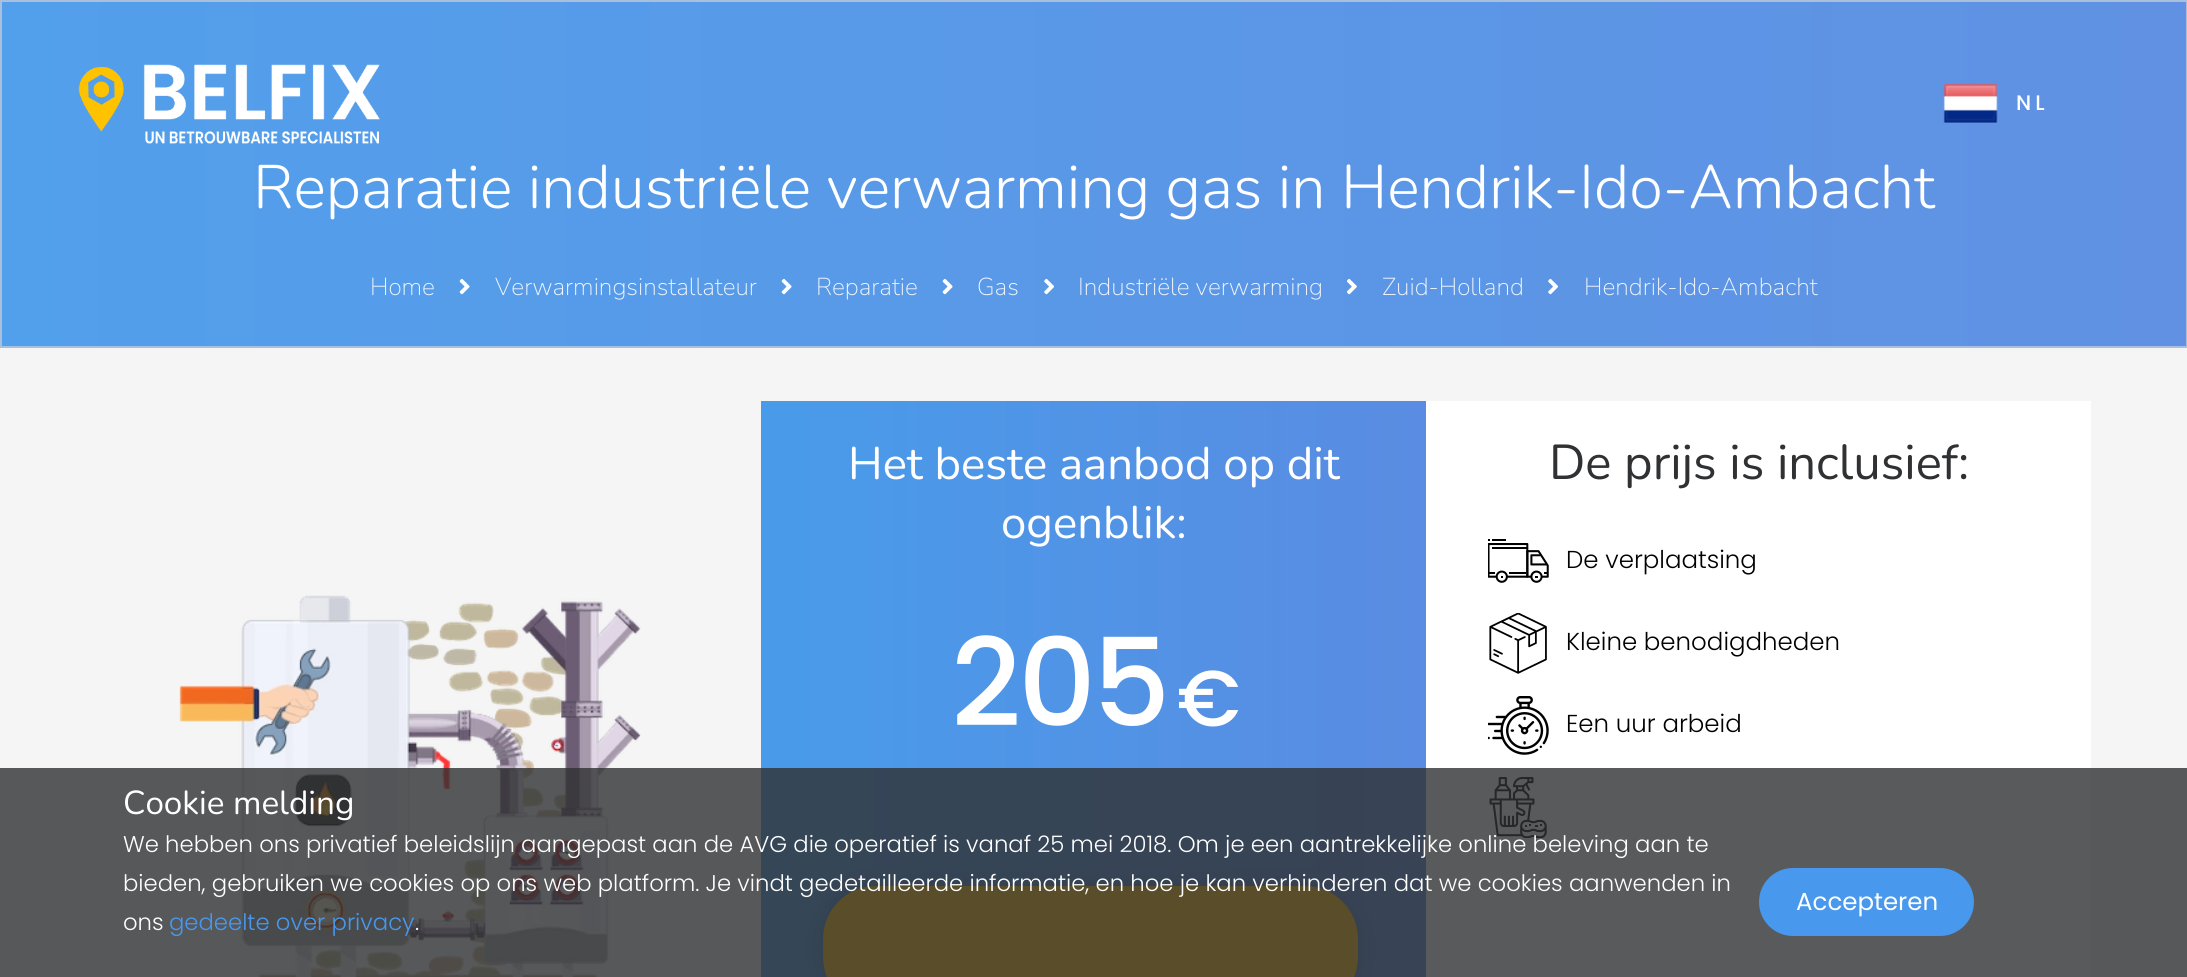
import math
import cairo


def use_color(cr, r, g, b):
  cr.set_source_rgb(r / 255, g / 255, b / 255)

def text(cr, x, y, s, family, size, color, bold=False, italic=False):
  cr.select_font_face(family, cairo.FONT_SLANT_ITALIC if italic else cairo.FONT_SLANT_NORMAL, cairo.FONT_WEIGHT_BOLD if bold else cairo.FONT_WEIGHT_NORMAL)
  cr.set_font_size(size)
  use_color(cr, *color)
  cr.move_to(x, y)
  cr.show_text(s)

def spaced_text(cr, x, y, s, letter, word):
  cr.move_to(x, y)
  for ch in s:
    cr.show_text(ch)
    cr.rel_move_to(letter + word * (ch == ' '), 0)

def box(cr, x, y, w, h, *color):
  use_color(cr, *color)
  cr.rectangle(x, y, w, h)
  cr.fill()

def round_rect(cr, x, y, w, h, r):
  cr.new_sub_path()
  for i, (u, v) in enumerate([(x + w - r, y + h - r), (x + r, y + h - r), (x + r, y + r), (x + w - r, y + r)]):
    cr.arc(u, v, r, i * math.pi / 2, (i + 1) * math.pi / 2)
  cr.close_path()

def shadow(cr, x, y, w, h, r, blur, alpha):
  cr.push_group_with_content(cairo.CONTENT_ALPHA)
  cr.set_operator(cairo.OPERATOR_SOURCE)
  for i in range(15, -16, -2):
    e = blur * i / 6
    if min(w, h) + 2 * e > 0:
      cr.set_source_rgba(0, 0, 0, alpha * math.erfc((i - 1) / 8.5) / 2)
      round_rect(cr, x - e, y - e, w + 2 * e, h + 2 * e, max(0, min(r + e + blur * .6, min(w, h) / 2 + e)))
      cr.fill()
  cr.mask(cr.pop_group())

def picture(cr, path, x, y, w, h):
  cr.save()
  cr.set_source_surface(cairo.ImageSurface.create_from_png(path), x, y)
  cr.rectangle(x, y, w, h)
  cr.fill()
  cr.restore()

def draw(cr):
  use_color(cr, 245, 245, 245)
  cr.paint()
  gradient = cairo.LinearGradient(1.8, 174, 2186, 174)
  gradient.add_color_stop_rgba(0, 0.322, 0.624, 0.922, 1)
  gradient.add_color_stop_rgba(1, 0.38, 0.569, 0.89, 1)
  cr.set_source(gradient)
  cr.rectangle(2, 2, 2184, 344)
  cr.fill()
  cr.rectangle(1, 1, 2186, 346)
  use_color(cr, 168, 191, 221)
  cr.stroke()
  picture(cr, "img_01.png", 78, 64, 302, 80)
  picture(cr, "img_02.png", 1943, 83, 55, 40)
  picture(cr, "img_03.png", 459, 278, 11, 17)
  picture(cr, "img_04.png", 781, 278, 11, 17)
  picture(cr, "img_05.png", 942, 278, 11, 17)
  picture(cr, "img_06.png", 1044, 278, 10, 17)
  picture(cr, "img_07.png", 1347, 278, 10, 17)
  picture(cr, "img_08.png", 1548, 278, 10, 17)
  picture(cr, "img_09.png", 179, 595, 462, 382)
  box(cr, 1426, 401, 665, 576, 255, 255, 255)
  gradient = cairo.LinearGradient(761, 797, 1426, 797)
  gradient.add_color_stop_rgba(0, 0.286, 0.608, 0.918, 1)
  gradient.add_color_stop_rgba(1, 0.349, 0.549, 0.886, 1)
  cr.set_source(gradient)
  cr.rectangle(761, 401, 665, 576)
  cr.fill()
  use_color(cr, 0, 0, 0)
  shadow(cr, 823, 886, 535, 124, 53, 9, 0.28)
  use_color(cr, 255, 193, 7)
  round_rect(cr, 824, 887, 533, 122, 52)
  cr.fill_preserve()
  cr.stroke()
  picture(cr, "img_10.png", 1488, 539, 61, 44)
  picture(cr, "img_11.png", 1489, 613, 58, 61)
  picture(cr, "img_12.png", 1488, 696, 61, 59)
  picture(cr, "img_13.png", 1489, 777, 58, 61)
  cr.set_source_rgba(0.188, 0.192, 0.2, 0.8)
  cr.rectangle(0, 768, 2187, 209)
  cr.fill()
  use_color(cr, 72, 152, 238)
  round_rect(cr, 1760, 869, 213, 66, 33)
  cr.fill_preserve()
  cr.stroke()
  cr.select_font_face("Poppins Medium")
  cr.set_font_size(21)
  use_color(cr, 255, 255, 255)
  spaced_text(cr, 2016, 110, "NL", 4, 0)
  text(cr, 253, 208, "Reparatie industriële verwarming gas in Hendrik-Ido-Ambacht", "Nunito Light", 61.25, (255, 255, 255))
  text(cr, 370, 295, "Home", "Nunito ExtraLight", 24.5, (238, 245, 253))
  text(cr, 495, 295, "Verwarmingsinstallateur", "Nunito ExtraLight", 24.5, (238, 245, 253))
  text(cr, 816, 295, "Reparatie", "Nunito ExtraLight", 24.5, (238, 245, 253))
  text(cr, 977, 295, "Gas", "Nunito ExtraLight", 24.5, (238, 245, 253))
  text(cr, 1078, 295, "Industriële verwarming", "Nunito ExtraLight", 24.5, (238, 245, 253))
  text(cr, 1382, 295, "Zuid-Holland", "Nunito ExtraLight", 24.5, (238, 245, 253))
  text(cr, 1584, 295, "Hendrik-Ido-Ambacht", "Nunito ExtraLight", 24.5, (238, 245, 253))
  text(cr, 848, 479, "Het beste aanbod op dit", "Nunito", 45.5, (255, 255, 255))
  text(cr, 1001, 538, "ogenblik:", "Nunito", 45.5, (255, 255, 255))
  cr.select_font_face("Poppins Medium")
  cr.set_font_size(122)
  spaced_text(cr, 951, 726, "205", -3.5, 0)
  cr.set_font_size(79)
  spaced_text(cr, 1177, 726, "€", -3.5, 0)
  text(cr, 1549, 479, "De prijs is inclusief:", "Nunito", 49, (48, 49, 51))
  text(cr, 1566, 568, "De verplaatsing", "Poppins Light", 24.5, (0, 0, 0))
  text(cr, 1566, 650, "Kleine benodigdheden", "Poppins Light", 24.5, (0, 0, 0))
  text(cr, 1566, 732, "Een uur arbeid", "Poppins Light", 24.5, (0, 0, 0))
  text(cr, 123, 814, "Cookie melding", "Nunito", 33.25, (255, 255, 255))
  text(cr, 123, 852, "We hebben ons privatief beleidslijn aangepast aan de AVG die operatief is vanaf 25 mei 2018. Om je een aantrekkelijke online beleving aan te", "Poppins Light", 22.75, (255, 255, 255))
  text(cr, 123, 891, "bieden, gebruiken we cookies op ons web platform. Je vindt gedetailleerde informatie, en hoe je kan verhinderen dat we cookies aanwenden in", "Poppins Light", 22.75, (255, 255, 255))
  text(cr, 123, 930, "ons", "Poppins Light", 22.75, (255, 255, 255))
  text(cr, 169, 930, "gedeelte over privacy", "Poppins Light", 22.75, (72, 152, 238))
  text(cr, 415, 930, ".", "Poppins Light", 22.75, (255, 255, 255))
  text(cr, 1796, 910, "Accepteren", "Poppins", 24.5, (255, 255, 255))


surface = cairo.ImageSurface(cairo.FORMAT_RGB24, 2187, 977)
cr = cairo.Context(surface)
options = cairo.FontOptions()
options.set_hint_metrics(cairo.HINT_METRICS_OFF)
options.set_hint_style(cairo.HINT_STYLE_NONE)
cr.set_font_options(options)
cr.set_miter_limit(4)
draw(cr)
surface.write_to_png("out.png")
